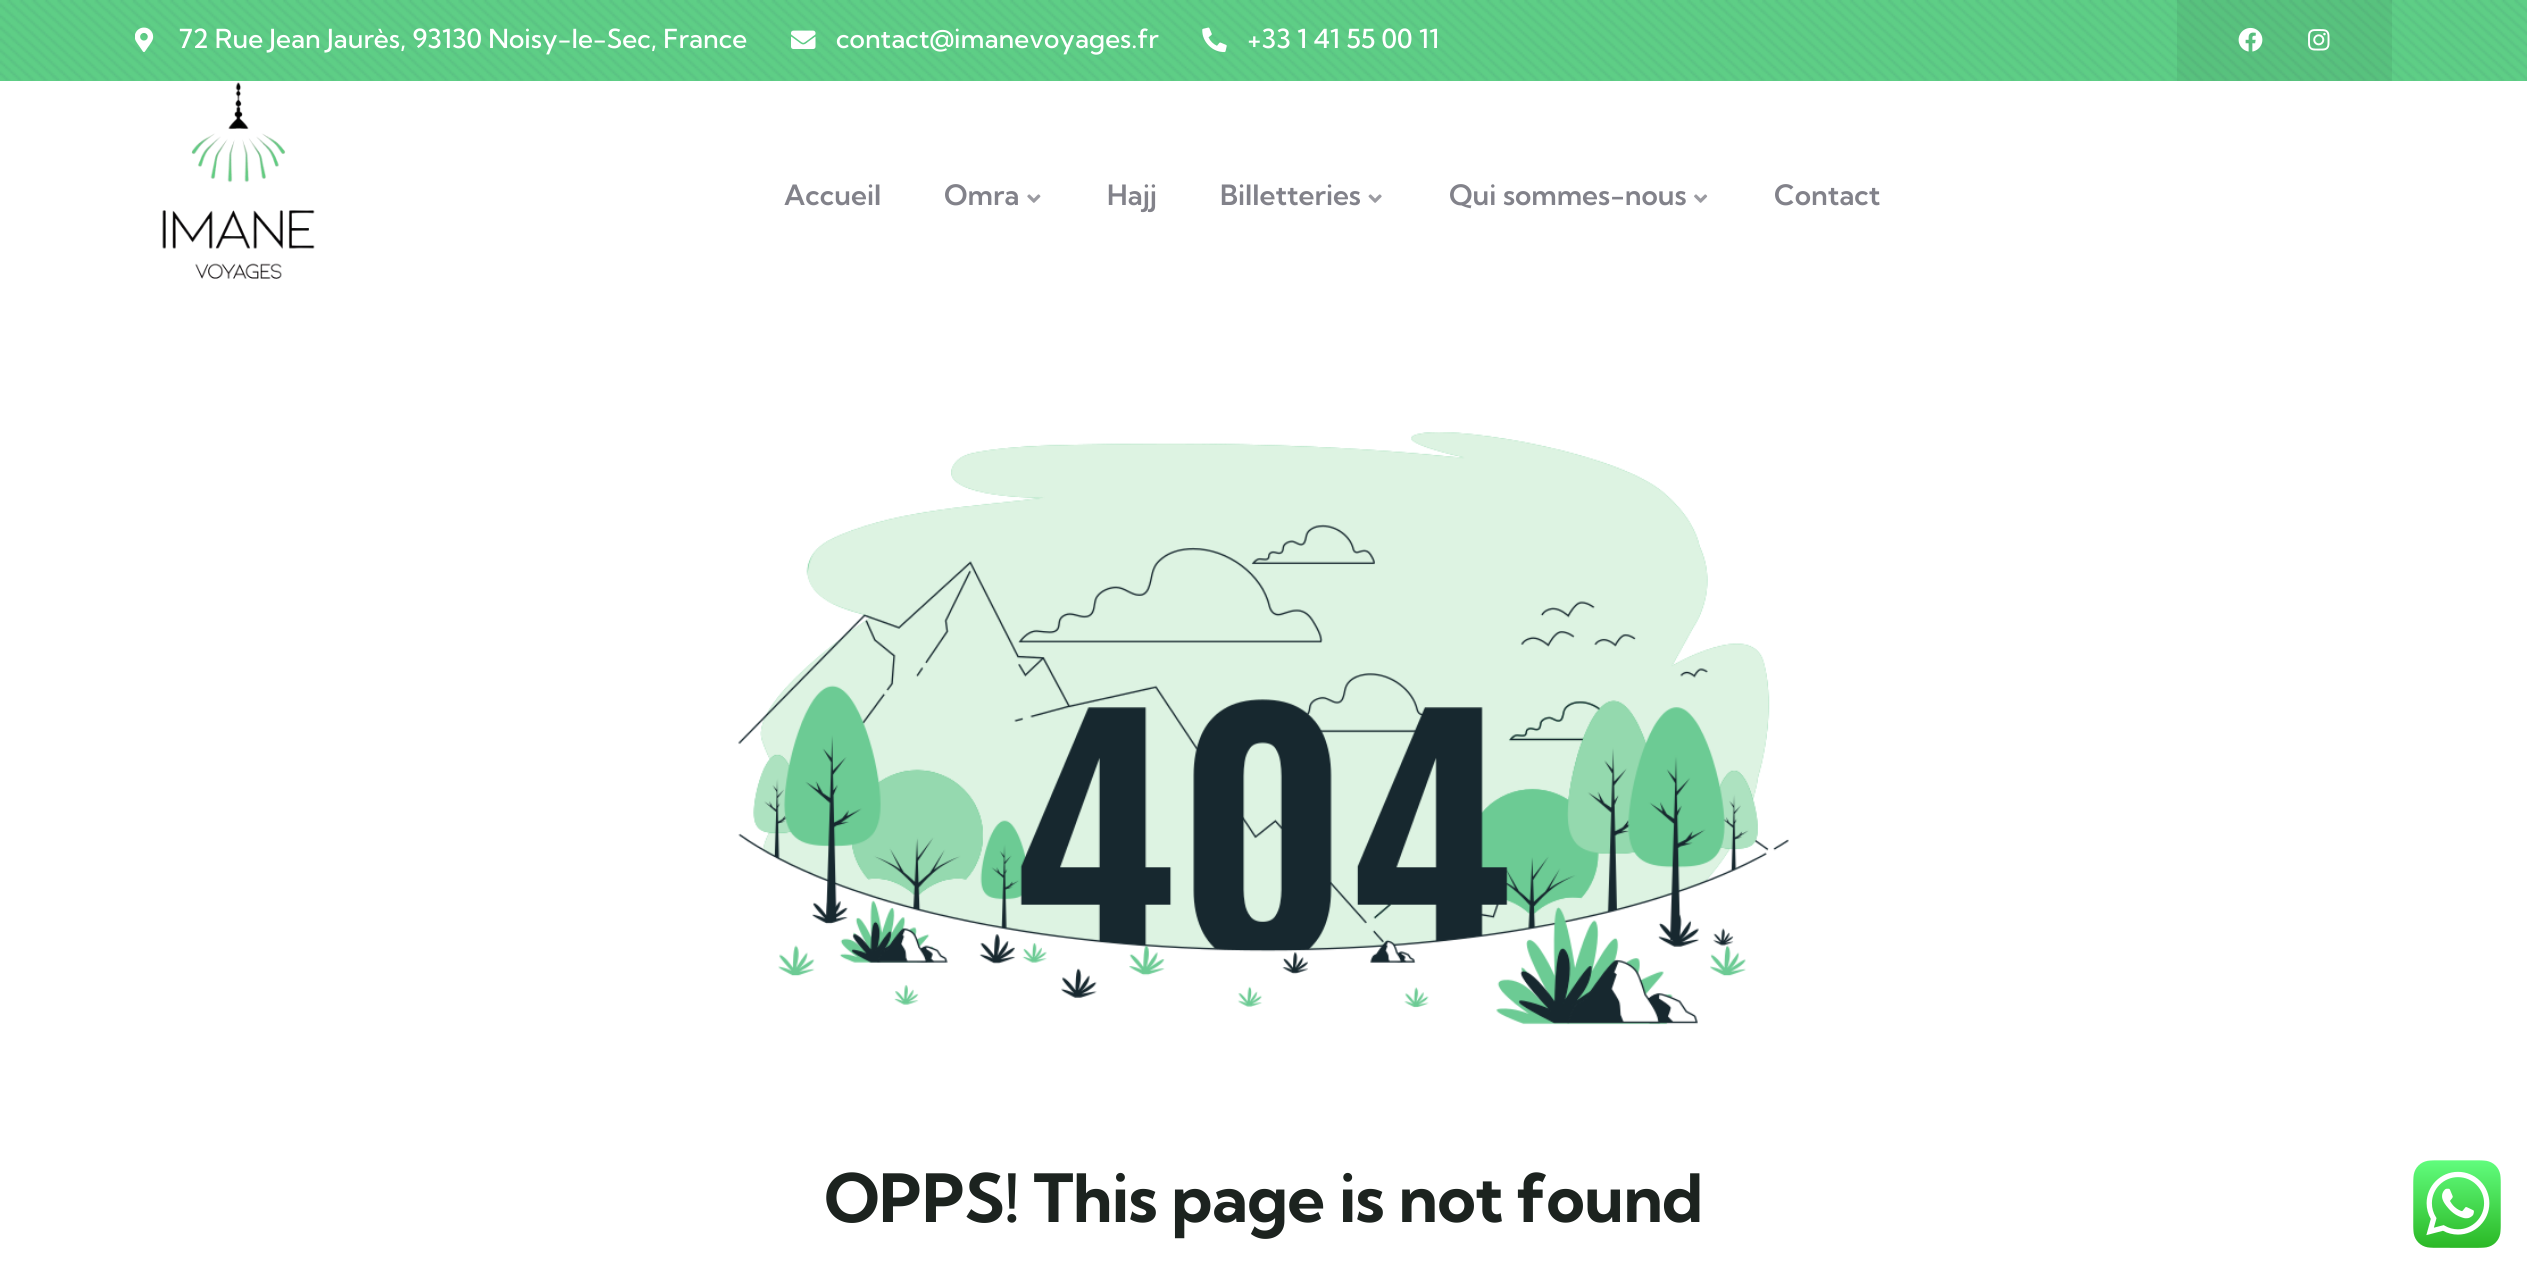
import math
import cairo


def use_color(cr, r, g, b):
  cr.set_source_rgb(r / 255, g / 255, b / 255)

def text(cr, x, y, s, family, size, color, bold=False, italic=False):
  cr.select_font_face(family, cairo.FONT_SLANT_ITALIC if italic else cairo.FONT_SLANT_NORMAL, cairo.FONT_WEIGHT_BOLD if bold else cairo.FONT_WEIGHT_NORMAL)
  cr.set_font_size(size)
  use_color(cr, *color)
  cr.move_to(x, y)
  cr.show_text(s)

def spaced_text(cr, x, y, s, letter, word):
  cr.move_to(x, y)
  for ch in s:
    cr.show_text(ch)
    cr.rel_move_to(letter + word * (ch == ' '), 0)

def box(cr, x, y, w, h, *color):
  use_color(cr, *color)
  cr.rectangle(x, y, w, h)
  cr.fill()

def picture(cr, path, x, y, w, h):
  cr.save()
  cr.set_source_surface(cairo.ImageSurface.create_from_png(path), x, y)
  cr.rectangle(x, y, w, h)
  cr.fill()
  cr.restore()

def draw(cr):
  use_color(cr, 255, 255, 255)
  cr.paint()
  box(cr, 0, 0, 2527, 81, 94, 206, 134)
  picture(cr, "img_01.png", 0, 0, 2527, 81)
  picture(cr, "img_02.png", 135, 27, 19, 25)
  picture(cr, "img_03.png", 791, 30, 25, 19)
  picture(cr, "img_04.png", 1202, 27, 25, 26)
  cr.set_source_rgba(0, 0, 0, 0.06)
  cr.rectangle(2177, 0, 215, 81)
  cr.fill()
  picture(cr, "img_05.png", 2238, 27, 25, 25)
  picture(cr, "img_06.png", 2308, 29, 22, 22)
  picture(cr, "img_07.png", 162, 82, 153, 197)
  picture(cr, "img_08.png", 1027, 194, 14, 9)
  picture(cr, "img_09.png", 1368, 194, 14, 9)
  picture(cr, "img_10.png", 1694, 194, 14, 9)
  picture(cr, "img_11.png", 738, 432, 1051, 593)
  picture(cr, "img_12.png", 2413, 1160, 88, 88)
  text(cr, 179, 48, "72 Rue Jean Jaurès, 93130 Noisy-le-Sec, France", "Kumbh Sans Medium", 26.25, (255, 255, 255))
  text(cr, 836, 48, "contact@imanevoyages.fr", "Kumbh Sans Medium", 26.25, (255, 255, 255))
  text(cr, 1247, 48, "+33 1 41 55 00 11", "Kumbh Sans Medium", 26.25, (255, 255, 255))
  text(cr, 784, 205, "Accueil", "Kumbh Sans SemiBold", 28, (130, 130, 138))
  text(cr, 944, 205, "Omra", "Kumbh Sans SemiBold", 28, (130, 130, 138))
  text(cr, 1107, 205, "Hajj", "Kumbh Sans SemiBold", 28, (130, 130, 138))
  text(cr, 1220, 205, "Billetteries", "Kumbh Sans SemiBold", 28, (130, 130, 138))
  text(cr, 1449, 205, "Qui sommes-nous", "Kumbh Sans SemiBold", 28, (130, 130, 138))
  text(cr, 1774, 205, "Contact", "Kumbh Sans SemiBold", 28, (130, 130, 138))
  cr.select_font_face("Kumbh Sans", cairo.FONT_SLANT_NORMAL, cairo.FONT_WEIGHT_BOLD)
  cr.set_font_size(66.5)
  use_color(cr, 28, 35, 31)
  spaced_text(cr, 824, 1222, "OPPS! This page is not found", -0.7, 0)


surface = cairo.ImageSurface(cairo.FORMAT_RGB24, 2527, 1273)
cr = cairo.Context(surface)
options = cairo.FontOptions()
options.set_hint_metrics(cairo.HINT_METRICS_OFF)
options.set_hint_style(cairo.HINT_STYLE_NONE)
cr.set_font_options(options)
cr.set_miter_limit(4)
draw(cr)
surface.write_to_png("out.png")
